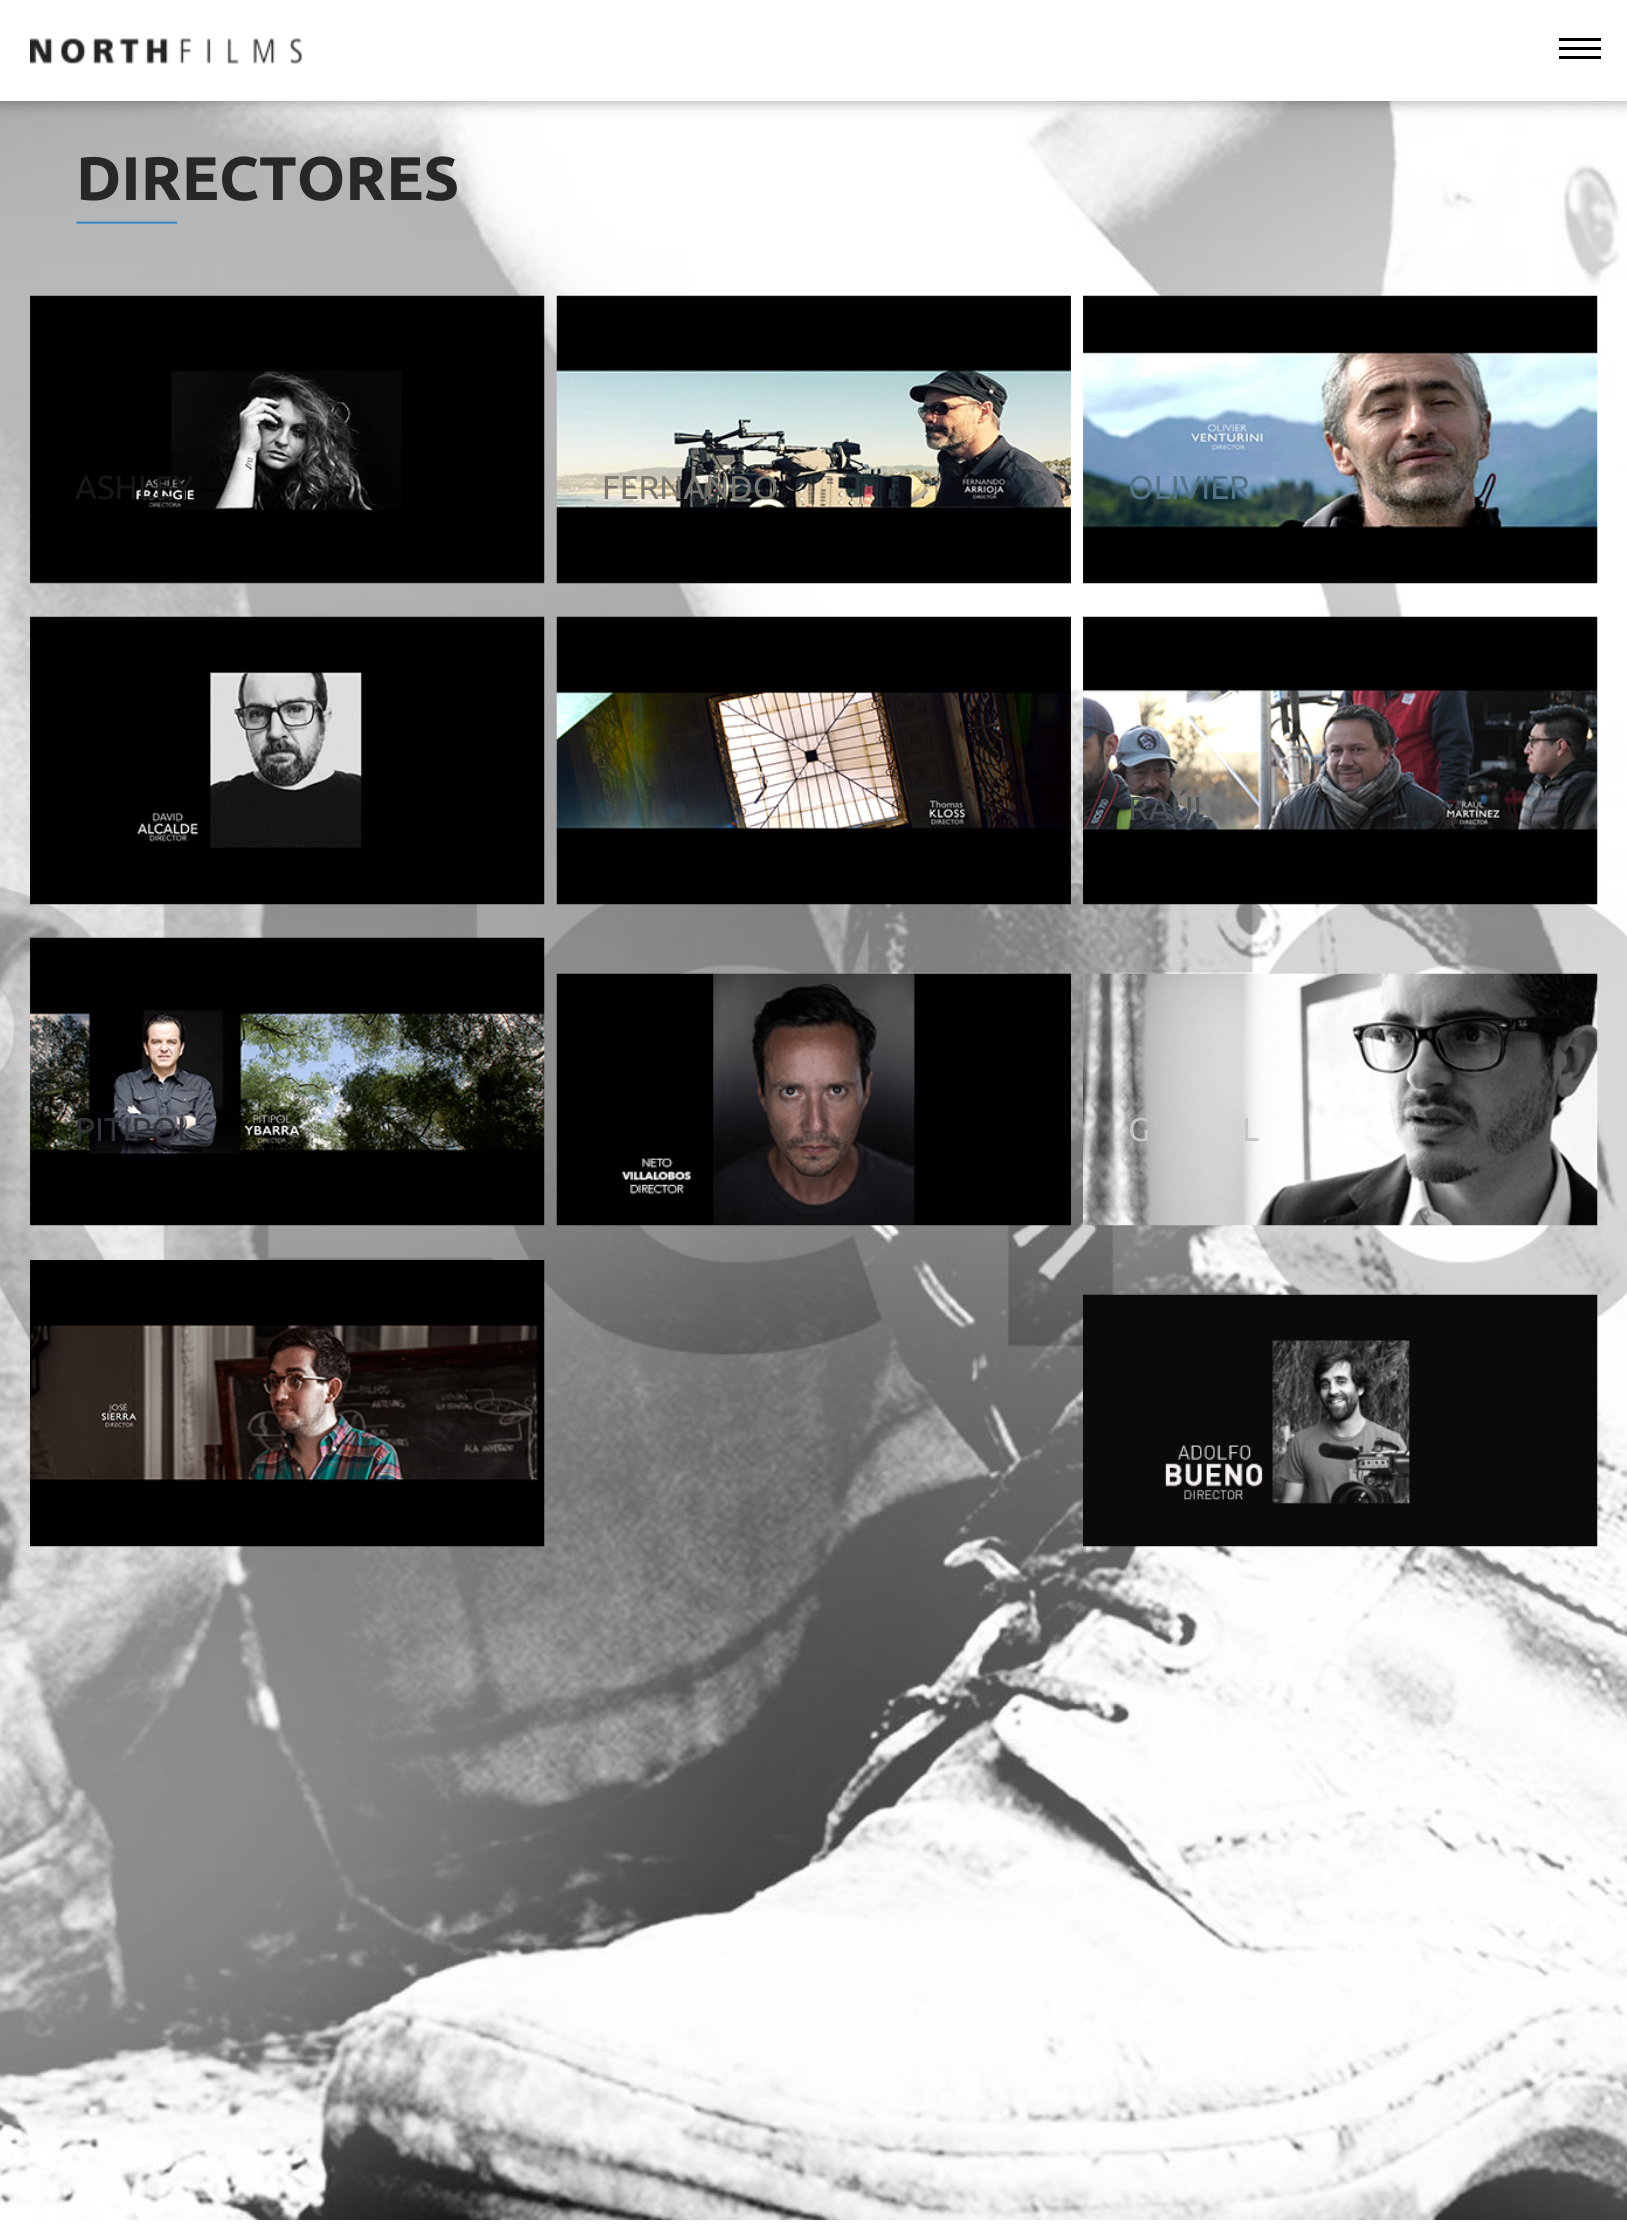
import math
import cairo


def use_color(cr, r, g, b):
  cr.set_source_rgb(r / 255, g / 255, b / 255)

def text(cr, x, y, s, family, size, color, bold=False, italic=False):
  cr.select_font_face(family, cairo.FONT_SLANT_ITALIC if italic else cairo.FONT_SLANT_NORMAL, cairo.FONT_WEIGHT_BOLD if bold else cairo.FONT_WEIGHT_NORMAL)
  cr.set_font_size(size)
  use_color(cr, *color)
  cr.move_to(x, y)
  cr.show_text(s)

def box(cr, x, y, w, h, *color):
  use_color(cr, *color)
  cr.rectangle(x, y, w, h)
  cr.fill()

def round_rect(cr, x, y, w, h, r):
  cr.new_sub_path()
  for i, (u, v) in enumerate([(x + w - r, y + h - r), (x + r, y + h - r), (x + r, y + r), (x + w - r, y + r)]):
    cr.arc(u, v, r, i * math.pi / 2, (i + 1) * math.pi / 2)
  cr.close_path()

def shadow(cr, x, y, w, h, r, blur, alpha):
  cr.push_group_with_content(cairo.CONTENT_ALPHA)
  cr.set_operator(cairo.OPERATOR_SOURCE)
  for i in range(15, -16, -2):
    e = blur * i / 6
    if min(w, h) + 2 * e > 0:
      cr.set_source_rgba(0, 0, 0, alpha * math.erfc((i - 1) / 8.5) / 2)
      round_rect(cr, x - e, y - e, w + 2 * e, h + 2 * e, max(0, min(r + e + blur * .6, min(w, h) / 2 + e)))
      cr.fill()
  cr.mask(cr.pop_group())

def picture(cr, path, x, y, w, h):
  cr.save()
  cr.set_source_surface(cairo.ImageSurface.create_from_png(path), x, y)
  cr.rectangle(x, y, w, h)
  cr.fill()
  cr.restore()

def draw(cr):
  use_color(cr, 255, 255, 255)
  cr.paint()
  picture(cr, "img_02.png", 0, 101, 1627, 2119)
  use_color(cr, 0, 0, 0)
  shadow(cr, 0, 0, 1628, 101, 0, 7.5, 0.4)
  box(cr, 0, 0, 1627, 101, 255, 255, 255)
  picture(cr, "img_01.png", 30, 38, 272, 26)
  box(cr, 1559, 38, 42, 3, 0, 0, 0)
  box(cr, 1559, 47, 42, 3, 0, 0, 0)
  box(cr, 1559, 56, 42, 3, 0, 0, 0)
  picture(cr, "img_03.png", 76, 220, 102, 4)
  picture(cr, "img_04.png", 30, 295, 515, 289)
  picture(cr, "img_05.png", 556, 295, 515, 289)
  picture(cr, "img_06.png", 1083, 295, 515, 289)
  picture(cr, "img_15.png", 0, 882, 1627, 473)
  picture(cr, "img_07.png", 30, 616, 515, 289)
  picture(cr, "img_08.png", 556, 616, 515, 289)
  picture(cr, "img_09.png", 1083, 616, 515, 289)
  picture(cr, "img_10.png", 30, 937, 515, 289)
  picture(cr, "img_11.png", 556, 973, 515, 253)
  picture(cr, "img_12.png", 1083, 973, 515, 253)
  picture(cr, "img_13.png", 30, 1260, 515, 287)
  picture(cr, "img_14.png", 1083, 1294, 515, 253)
  text(cr, 76, 200, "DIRECTORES", "Ubuntu", 61.5, (39, 39, 39), bold=True)
  text(cr, 75, 499, "ASHLEY", "Ubuntu", 33, (23, 23, 23))
  text(cr, 602, 499, "FERNANDO", "Ubuntu", 33, (122, 120, 112))
  text(cr, 1128, 499, "OLIVIER", "Ubuntu", 33, (82, 115, 136))
  text(cr, 1128, 820, "RAÚL", "Ubuntu", 33, (78, 83, 85))
  text(cr, 75, 1141, "PITIPOL", "Ubuntu", 33, (49, 51, 56))
  text(cr, 1128, 1141, "G", "Ubuntu", 33, (198, 198, 198))
  text(cr, 1242, 1141, "L", "Ubuntu", 33, (198, 198, 198))


surface = cairo.ImageSurface(cairo.FORMAT_RGB24, 1627, 2229)
cr = cairo.Context(surface)
options = cairo.FontOptions()
options.set_hint_metrics(cairo.HINT_METRICS_OFF)
options.set_hint_style(cairo.HINT_STYLE_NONE)
cr.set_font_options(options)
cr.set_miter_limit(4)
draw(cr)
surface.write_to_png("out.png")
